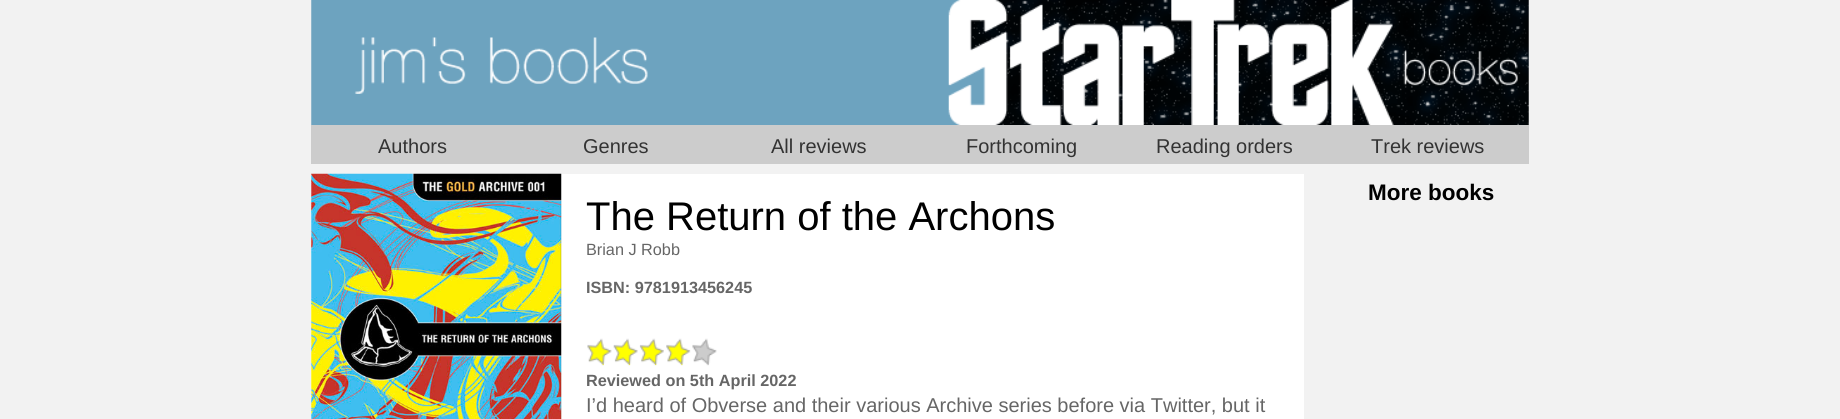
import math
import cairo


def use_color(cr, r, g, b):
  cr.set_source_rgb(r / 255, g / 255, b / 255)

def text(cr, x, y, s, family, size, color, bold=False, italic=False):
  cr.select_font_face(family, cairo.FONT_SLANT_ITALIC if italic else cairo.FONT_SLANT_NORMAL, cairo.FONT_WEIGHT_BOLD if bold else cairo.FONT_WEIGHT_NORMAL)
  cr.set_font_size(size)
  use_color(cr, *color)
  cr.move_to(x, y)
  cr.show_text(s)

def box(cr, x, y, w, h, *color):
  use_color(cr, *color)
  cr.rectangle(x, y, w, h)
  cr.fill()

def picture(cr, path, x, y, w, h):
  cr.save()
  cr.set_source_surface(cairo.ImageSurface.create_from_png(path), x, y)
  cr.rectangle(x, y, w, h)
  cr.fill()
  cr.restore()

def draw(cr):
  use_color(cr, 242, 242, 242)
  cr.paint()
  picture(cr, "img_01.png", 311, 0, 1218, 125)
  box(cr, 311, 125, 1218, 39, 204, 204, 204)
  box(cr, 311, 174, 993, 245, 255, 255, 255)
  picture(cr, "img_02.png", 311, 173, 251, 246)
  picture(cr, "img_03.png", 587, 338, 25, 28)
  picture(cr, "img_04.png", 613, 338, 25, 28)
  picture(cr, "img_05.png", 639, 338, 25, 28)
  picture(cr, "img_06.png", 666, 338, 25, 28)
  picture(cr, "img_07.png", 692, 338, 25, 28)
  text(cr, 378, 153, "Authors", "Liberation Sans", 20, (51, 51, 51))
  text(cr, 583, 153, "Genres", "Liberation Sans", 20, (51, 51, 51))
  text(cr, 771, 153, "All reviews", "Liberation Sans", 20, (51, 51, 51))
  text(cr, 966, 153, "Forthcoming", "Liberation Sans", 20, (51, 51, 51))
  text(cr, 1156, 153, "Reading orders", "Liberation Sans", 20, (51, 51, 51))
  text(cr, 1371, 153, "Trek reviews", "Liberation Sans", 20, (51, 51, 51))
  text(cr, 1368, 200, "More books", "Liberation Sans", 22.5, (0, 0, 0), bold=True)
  text(cr, 586, 230, "The Return of the Archons", "Liberation Sans", 40, (0, 0, 0))
  text(cr, 586, 255, "Brian J Robb", "Liberation Sans", 16.25, (102, 102, 102))
  text(cr, 586, 293, "ISBN: 9781913456245", "Liberation Sans", 16.25, (102, 102, 102), bold=True)
  text(cr, 586, 386, "Reviewed on 5th April 2022", "Liberation Sans", 16.25, (102, 102, 102), bold=True)
  text(cr, 586, 412, "I’d heard of Obverse and their various Archive series before via Twitter, but it", "Liberation Sans", 20, (102, 102, 102))


surface = cairo.ImageSurface(cairo.FORMAT_RGB24, 1840, 419)
cr = cairo.Context(surface)
options = cairo.FontOptions()
options.set_hint_metrics(cairo.HINT_METRICS_OFF)
options.set_hint_style(cairo.HINT_STYLE_NONE)
cr.set_font_options(options)
cr.set_miter_limit(4)
draw(cr)
surface.write_to_png("out.png")
